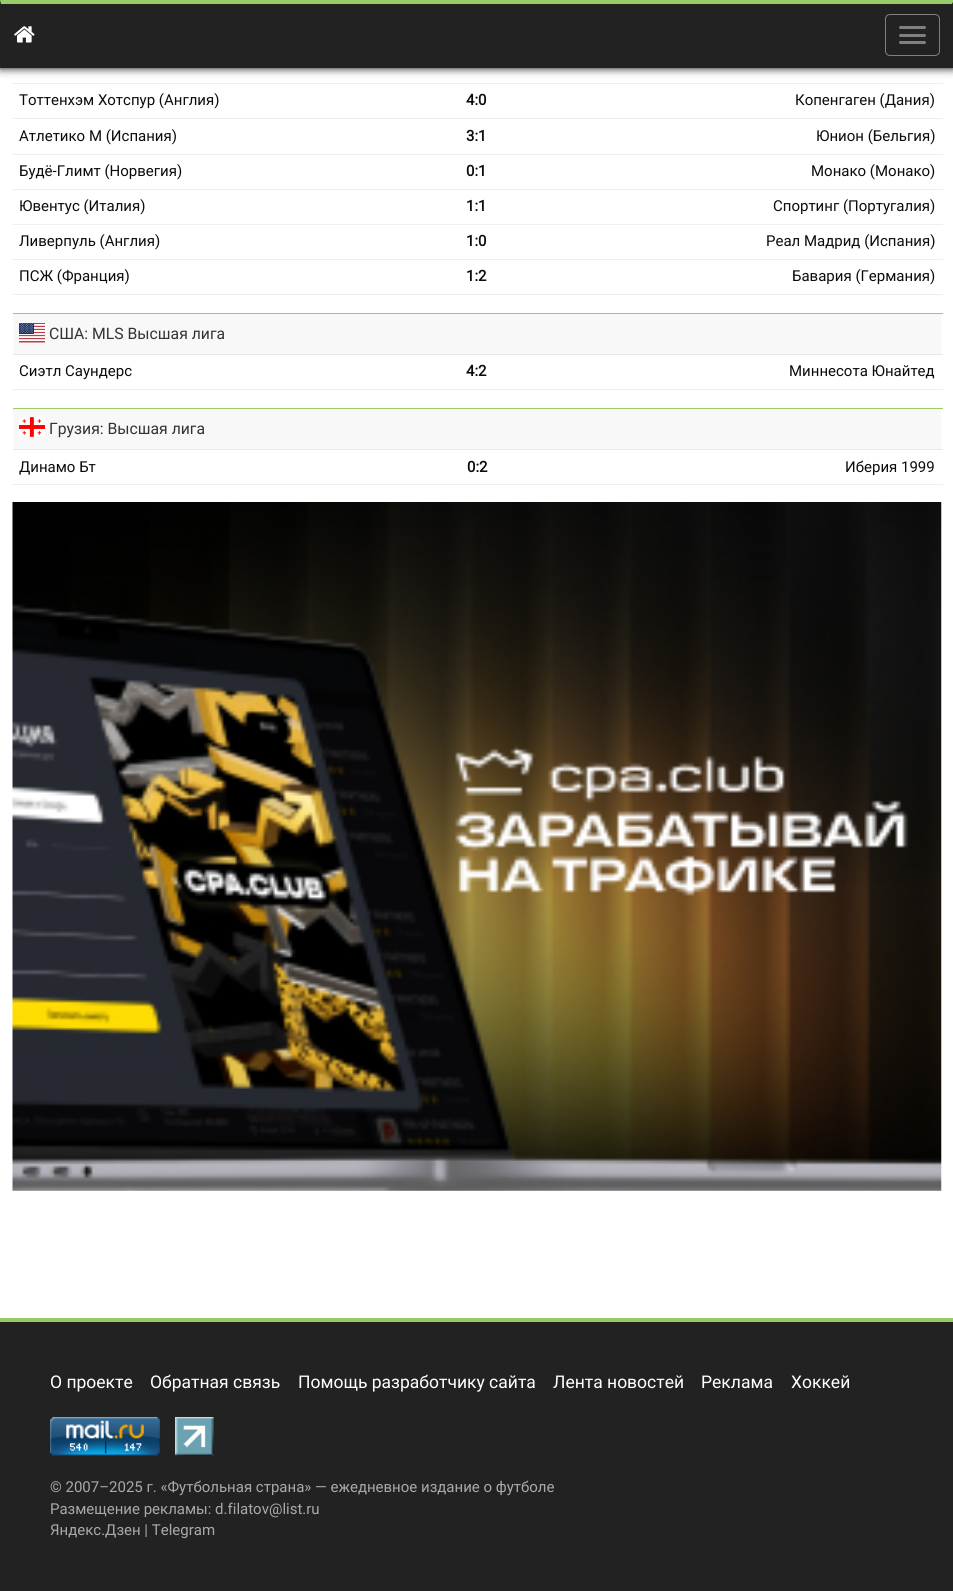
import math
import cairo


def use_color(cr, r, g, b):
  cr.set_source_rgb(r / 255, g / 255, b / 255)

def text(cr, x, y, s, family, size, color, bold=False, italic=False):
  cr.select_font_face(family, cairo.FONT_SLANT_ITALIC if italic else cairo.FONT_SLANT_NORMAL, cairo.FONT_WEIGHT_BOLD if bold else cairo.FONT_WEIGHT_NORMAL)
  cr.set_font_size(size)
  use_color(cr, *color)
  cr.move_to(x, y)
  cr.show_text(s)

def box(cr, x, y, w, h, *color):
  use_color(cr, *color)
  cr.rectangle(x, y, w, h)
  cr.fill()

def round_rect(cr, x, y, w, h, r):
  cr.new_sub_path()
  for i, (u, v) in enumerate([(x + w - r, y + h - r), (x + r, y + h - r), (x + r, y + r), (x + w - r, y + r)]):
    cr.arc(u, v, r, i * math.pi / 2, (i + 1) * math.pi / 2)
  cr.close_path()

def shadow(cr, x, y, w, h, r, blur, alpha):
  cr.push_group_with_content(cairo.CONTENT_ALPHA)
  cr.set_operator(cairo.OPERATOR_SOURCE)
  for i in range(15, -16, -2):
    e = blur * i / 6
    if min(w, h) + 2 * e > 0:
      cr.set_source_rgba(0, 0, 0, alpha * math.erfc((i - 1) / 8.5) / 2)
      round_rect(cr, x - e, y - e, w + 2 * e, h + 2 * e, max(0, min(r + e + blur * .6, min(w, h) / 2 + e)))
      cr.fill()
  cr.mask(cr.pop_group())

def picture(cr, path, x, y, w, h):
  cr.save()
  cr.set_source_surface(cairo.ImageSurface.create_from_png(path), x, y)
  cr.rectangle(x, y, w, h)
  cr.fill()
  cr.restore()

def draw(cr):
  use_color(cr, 255, 255, 255)
  cr.paint()
  use_color(cr, 0, 0, 0)
  shadow(cr, 0, 0, 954, 68, 0, 4.5, 1)
  box(cr, 0, 0, 953, 68, 34, 34, 34)
  use_color(cr, 153, 204, 102)
  cr.new_path()
  cr.move_to(0, 0)
  cr.line_to(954, 0)
  cr.line_to(952, 4)
  cr.line_to(1, 4)
  cr.close_path()
  cr.fill()
  picture(cr, "img_01.png", 14, 26, 21, 17)
  round_rect(cr, 885.5, 14.5, 54, 41, 4.5)
  use_color(cr, 128, 128, 128)
  cr.set_line_width(1)
  cr.stroke()
  round_rect(cr, 899, 26, 27, 3, 1.5)
  cr.fill()
  round_rect(cr, 899, 34, 27, 3, 1.5)
  cr.fill()
  round_rect(cr, 899, 41, 27, 3, 1.5)
  cr.fill()
  box(cr, 13, 83, 930, 1, 238, 238, 238)
  box(cr, 13, 118, 930, 1, 238, 238, 238)
  box(cr, 13, 154, 930, 1, 238, 238, 238)
  box(cr, 13, 189, 930, 1, 238, 238, 238)
  box(cr, 13, 224, 930, 1, 238, 238, 238)
  box(cr, 13, 259, 930, 1, 238, 238, 238)
  box(cr, 13, 294, 930, 1, 238, 238, 238)
  box(cr, 13, 314, 928, 40, 248, 248, 248)
  box(cr, 13, 313, 930, 1, 153, 204, 102)
  box(cr, 13, 354, 930, 1, 232, 232, 232)
  picture(cr, "img_02.png", 19, 323, 26, 20)
  box(cr, 13, 389, 930, 1, 238, 238, 238)
  box(cr, 13, 409, 928, 40, 248, 248, 248)
  box(cr, 13, 408, 930, 1, 153, 204, 102)
  box(cr, 13, 449, 930, 1, 232, 232, 232)
  picture(cr, "img_03.png", 19, 417, 26, 20)
  box(cr, 13, 484, 930, 1, 238, 238, 238)
  picture(cr, "img_04.png", 12, 502, 930, 689)
  box(cr, 0, 1322, 953, 269, 34, 34, 34)
  box(cr, 0, 1318, 953, 4, 153, 204, 102)
  picture(cr, "img_05.png", 50, 1417, 110, 39)
  picture(cr, "img_06.png", 175, 1417, 39, 39)
  text(cr, 19, 105, "Тоттенхэм Хотспур (Англия)", "Roboto", 15, (12, 12, 12))
  text(cr, 466, 105, "4:0", "Roboto", 15, (12, 12, 12), bold=True)
  text(cr, 795, 105, "Копенгаген (Дания)", "Roboto", 15, (12, 12, 12))
  text(cr, 19, 141, "Атлетико М (Испания)", "Roboto", 15, (12, 12, 12))
  text(cr, 466, 141, "3:1", "Roboto", 15, (12, 12, 12), bold=True)
  text(cr, 816, 141, "Юнион (Бельгия)", "Roboto", 15, (12, 12, 12))
  text(cr, 19, 176, "Будё-Глимт (Норвегия)", "Roboto", 15, (12, 12, 12))
  text(cr, 466, 176, "0:1", "Roboto", 15, (12, 12, 12), bold=True)
  text(cr, 811, 176, "Монако (Монако)", "Roboto", 15, (12, 12, 12))
  text(cr, 19, 211, "Ювентус (Италия)", "Roboto", 15, (12, 12, 12))
  text(cr, 466, 211, "1:1", "Roboto", 15, (12, 12, 12), bold=True)
  text(cr, 773, 211, "Спортинг (Португалия)", "Roboto", 15, (12, 12, 12))
  text(cr, 19, 246, "Ливерпуль (Англия)", "Roboto", 15, (12, 12, 12))
  text(cr, 466, 246, "1:0", "Roboto", 15, (12, 12, 12), bold=True)
  text(cr, 766, 246, "Реал Мадрид (Испания)", "Roboto", 15, (12, 12, 12))
  text(cr, 19, 281, "ПСЖ (Франция)", "Roboto", 15, (12, 12, 12))
  text(cr, 466, 281, "1:2", "Roboto", 15, (12, 12, 12), bold=True)
  text(cr, 792, 281, "Бавария (Германия)", "Roboto", 15, (12, 12, 12))
  text(cr, 49, 339, "США: MLS Высшая лига", "Roboto", 15.75, (51, 51, 51))
  text(cr, 19, 376, "Сиэтл Саундерс", "Roboto", 15, (12, 12, 12))
  text(cr, 466, 376, "4:2", "Roboto", 15, (12, 12, 12), bold=True)
  text(cr, 789, 376, "Миннесота Юнайтед", "Roboto", 15, (12, 12, 12))
  text(cr, 49, 434, "Грузия: Высшая лига", "Roboto", 15.75, (51, 51, 51))
  text(cr, 19, 472, "Динамо Бт", "Roboto", 15, (12, 12, 12))
  text(cr, 467, 472, "0:2", "Roboto", 15, (12, 12, 12), bold=True)
  text(cr, 845, 472, "Иберия 1999", "Roboto", 15, (12, 12, 12))
  text(cr, 50, 1388, "О проекте", "Roboto", 17.5, (255, 255, 255))
  text(cr, 150, 1388, "Обратная связь", "Roboto", 17.5, (255, 255, 255))
  text(cr, 298, 1388, "Помощь разработчику сайта", "Roboto", 17.5, (255, 255, 255))
  text(cr, 553, 1388, "Лента новостей", "Roboto", 17.5, (255, 255, 255))
  text(cr, 701, 1388, "Реклама", "Roboto", 17.5, (255, 255, 255))
  text(cr, 791, 1388, "Хоккей", "Roboto", 17.5, (255, 255, 255))
  text(cr, 50, 1492, "© 2007–2025 г. «Футбольная страна» — ежедневное издание о футболе", "Roboto", 15, (169, 169, 169))
  text(cr, 50, 1514, "Размещение рекламы: d.filatov@list.ru", "Roboto", 15, (169, 169, 169))
  text(cr, 50, 1535, "Яндекс.Дзен | Telegram", "Roboto", 15, (169, 169, 169))


surface = cairo.ImageSurface(cairo.FORMAT_RGB24, 953, 1591)
cr = cairo.Context(surface)
options = cairo.FontOptions()
options.set_hint_metrics(cairo.HINT_METRICS_OFF)
options.set_hint_style(cairo.HINT_STYLE_NONE)
cr.set_font_options(options)
cr.set_miter_limit(4)
draw(cr)
surface.write_to_png("out.png")
